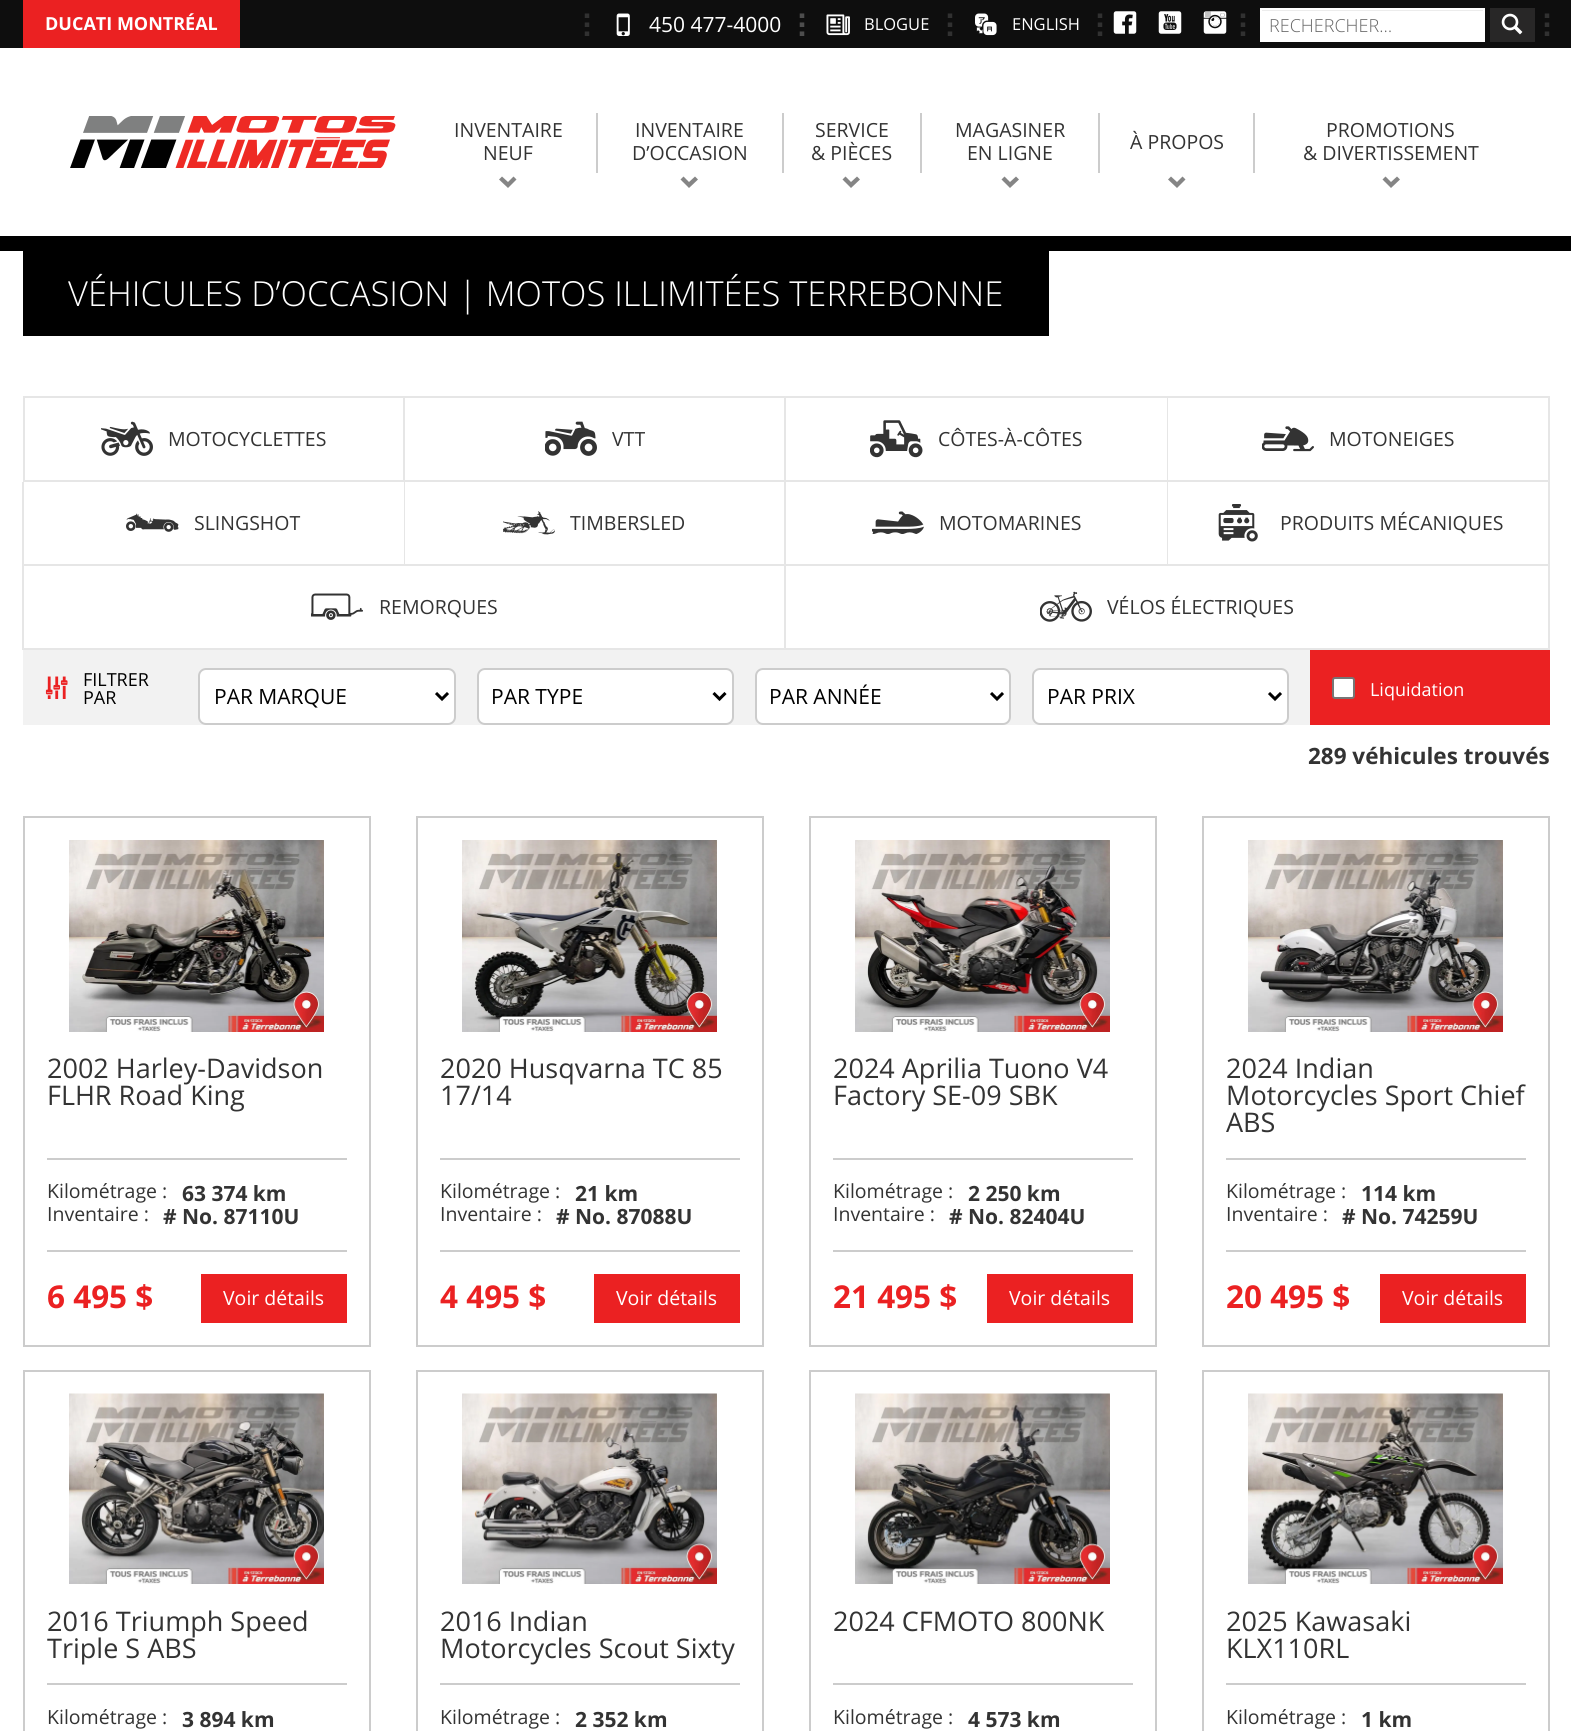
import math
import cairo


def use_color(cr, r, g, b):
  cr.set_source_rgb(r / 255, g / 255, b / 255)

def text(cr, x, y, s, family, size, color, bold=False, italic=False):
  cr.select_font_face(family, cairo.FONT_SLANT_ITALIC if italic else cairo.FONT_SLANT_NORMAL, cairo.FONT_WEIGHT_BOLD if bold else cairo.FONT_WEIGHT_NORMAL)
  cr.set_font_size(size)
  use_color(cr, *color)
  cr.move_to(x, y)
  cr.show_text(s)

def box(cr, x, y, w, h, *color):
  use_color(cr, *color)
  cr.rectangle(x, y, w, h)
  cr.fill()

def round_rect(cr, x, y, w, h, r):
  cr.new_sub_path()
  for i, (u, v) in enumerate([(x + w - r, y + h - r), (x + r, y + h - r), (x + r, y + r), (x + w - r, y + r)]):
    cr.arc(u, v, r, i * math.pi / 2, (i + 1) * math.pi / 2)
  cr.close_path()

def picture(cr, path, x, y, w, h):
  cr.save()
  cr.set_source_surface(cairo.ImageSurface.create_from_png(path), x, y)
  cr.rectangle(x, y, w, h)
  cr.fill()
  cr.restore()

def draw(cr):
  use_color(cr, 255, 255, 255)
  cr.paint()
  box(cr, 0, 0, 1571, 48, 14, 14, 14)
  box(cr, 23, 0, 217, 48, 235, 33, 34)
  cr.new_path()
  cr.move_to(587, 13.5)
  cr.line_to(587, 18)
  cr.move_to(587, 22.5)
  cr.line_to(587, 27)
  cr.move_to(587, 31.5)
  cr.line_to(587, 36)
  use_color(cr, 49, 49, 49)
  cr.set_line_width(4.5)
  cr.stroke()
  picture(cr, "img_01.png", 616, 13, 14, 23)
  cr.new_path()
  cr.move_to(802, 13.5)
  cr.line_to(802, 18)
  cr.move_to(802, 22.5)
  cr.line_to(802, 27)
  cr.move_to(802, 31.5)
  cr.line_to(802, 36)
  cr.stroke()
  cr.new_path()
  cr.move_to(802, 13.5)
  cr.line_to(802, 18)
  cr.move_to(802, 22.5)
  cr.line_to(802, 27)
  cr.move_to(802, 31.5)
  cr.line_to(802, 36)
  cr.set_source_rgba(0.749, 0.749, 0.749, 0.2)
  cr.stroke()
  picture(cr, "img_02.png", 826, 14, 24, 22)
  cr.new_path()
  cr.move_to(950, 13.5)
  cr.line_to(950, 18)
  cr.move_to(950, 22.5)
  cr.line_to(950, 27)
  cr.move_to(950, 31.5)
  cr.line_to(950, 36)
  use_color(cr, 49, 49, 49)
  cr.stroke()
  picture(cr, "img_03.png", 975, 13, 22, 23)
  cr.new_path()
  cr.move_to(1100, 13.5)
  cr.line_to(1100, 18)
  cr.move_to(1100, 22.5)
  cr.line_to(1100, 27)
  cr.move_to(1100, 31.5)
  cr.line_to(1100, 36)
  cr.stroke()
  picture(cr, "img_04.png", 1113, 11, 24, 23)
  picture(cr, "img_05.png", 1158, 11, 24, 23)
  picture(cr, "img_06.png", 1203, 11, 24, 23)
  cr.new_path()
  cr.move_to(1243, 13.5)
  cr.line_to(1243, 18)
  cr.move_to(1243, 22.5)
  cr.line_to(1243, 27)
  cr.move_to(1243, 31.5)
  cr.line_to(1243, 36)
  cr.stroke()
  box(cr, 1262, 11, 221, 29, 255, 255, 255)
  box(cr, 1262, 10, 222, 1, 236, 236, 236)
  cr.rectangle(1261, 9, 223, 32)
  use_color(cr, 255, 255, 255)
  cr.set_line_width(2)
  cr.stroke()
  box(cr, 1490, 8, 45, 34, 40, 39, 39)
  picture(cr, "img_07.png", 1501, 13, 22, 22)
  cr.new_path()
  cr.move_to(1547, 13.5)
  cr.line_to(1547, 18)
  cr.move_to(1547, 22.5)
  cr.line_to(1547, 27)
  cr.move_to(1547, 31.5)
  cr.line_to(1547, 36)
  use_color(cr, 49, 49, 49)
  cr.set_line_width(4.5)
  cr.stroke()
  picture(cr, "img_08.png", 70, 116, 326, 52)
  use_color(cr, 133, 133, 133)
  cr.new_path()
  cr.move_to(508, 188)
  cr.line_to(499, 179.5)
  cr.line_to(502, 176.5)
  cr.line_to(508, 182)
  cr.line_to(513.5, 176.5)
  cr.line_to(516.5, 179.5)
  cr.close_path()
  cr.fill()
  box(cr, 596, 113, 2, 60, 204, 204, 204)
  use_color(cr, 133, 133, 133)
  cr.new_path()
  cr.move_to(689, 188)
  cr.line_to(680.5, 179.5)
  cr.line_to(683.5, 176.5)
  cr.line_to(689, 182)
  cr.line_to(695, 176.5)
  cr.line_to(698, 179.5)
  cr.close_path()
  cr.fill()
  box(cr, 782, 113, 2, 60, 204, 204, 204)
  use_color(cr, 133, 133, 133)
  cr.new_path()
  cr.move_to(851, 188)
  cr.line_to(842.5, 179.5)
  cr.line_to(845.5, 176.5)
  cr.line_to(851, 182)
  cr.line_to(857, 176.5)
  cr.line_to(860, 179.5)
  cr.close_path()
  cr.fill()
  box(cr, 920, 113, 2, 60, 204, 204, 204)
  use_color(cr, 133, 133, 133)
  cr.new_path()
  cr.move_to(1010, 188)
  cr.line_to(1001.5, 179.5)
  cr.line_to(1004.5, 176.5)
  cr.line_to(1010, 182)
  cr.line_to(1016, 176.5)
  cr.line_to(1019, 179.5)
  cr.close_path()
  cr.fill()
  box(cr, 1098, 113, 2, 60, 204, 204, 204)
  use_color(cr, 133, 133, 133)
  cr.new_path()
  cr.move_to(1177, 188)
  cr.line_to(1168, 179.5)
  cr.line_to(1171, 176.5)
  cr.line_to(1177, 182)
  cr.line_to(1182.5, 176.5)
  cr.line_to(1185.5, 179.5)
  cr.close_path()
  cr.fill()
  box(cr, 1253, 113, 2, 60, 204, 204, 204)
  use_color(cr, 133, 133, 133)
  cr.new_path()
  cr.move_to(1391, 188)
  cr.line_to(1382.5, 179.5)
  cr.line_to(1385.5, 176.5)
  cr.line_to(1391, 182)
  cr.line_to(1397, 176.5)
  cr.line_to(1400, 179.5)
  cr.close_path()
  cr.fill()
  box(cr, 0, 236, 1571, 15, 0, 0, 0)
  box(cr, 23, 251, 1026, 85, 0, 0, 0)
  cr.rectangle(24, 397, 380, 84)
  use_color(cr, 230, 230, 230)
  cr.set_line_width(2)
  cr.stroke()
  picture(cr, "img_09.png", 101, 421, 52, 35)
  cr.new_path()
  cr.move_to(405, 396)
  cr.line_to(786, 396)
  cr.line_to(784, 398)
  cr.line_to(405, 398)
  cr.close_path()
  cr.fill()
  cr.set_source_rgba(0, 0, 0, 0.1)
  cr.new_path()
  cr.move_to(786, 396)
  cr.line_to(786, 482)
  cr.line_to(784, 480)
  cr.line_to(784, 398)
  cr.close_path()
  cr.fill()
  cr.new_path()
  cr.move_to(786, 482)
  cr.line_to(405, 482)
  cr.line_to(405, 480)
  cr.line_to(784, 480)
  cr.close_path()
  cr.fill()
  picture(cr, "img_10.png", 545, 421, 52, 35)
  use_color(cr, 230, 230, 230)
  cr.new_path()
  cr.move_to(786, 396)
  cr.line_to(1168, 396)
  cr.line_to(1167, 398)
  cr.line_to(786, 398)
  cr.close_path()
  cr.fill()
  cr.set_source_rgba(0, 0, 0, 0.1)
  cr.new_path()
  cr.move_to(1168, 396)
  cr.line_to(1168, 482)
  cr.line_to(1167, 480)
  cr.line_to(1167, 398)
  cr.close_path()
  cr.fill()
  cr.new_path()
  cr.move_to(1168, 482)
  cr.line_to(786, 482)
  cr.line_to(786, 480)
  cr.line_to(1167, 480)
  cr.close_path()
  cr.fill()
  picture(cr, "img_11.png", 870, 420, 53, 38)
  use_color(cr, 230, 230, 230)
  cr.new_path()
  cr.move_to(1168, 396)
  cr.line_to(1550, 396)
  cr.line_to(1548, 398)
  cr.line_to(1168, 398)
  cr.close_path()
  cr.fill()
  cr.set_source_rgba(0, 0, 0, 0.1)
  cr.new_path()
  cr.move_to(1550, 396)
  cr.line_to(1550, 482)
  cr.line_to(1548, 480)
  cr.line_to(1548, 398)
  cr.close_path()
  cr.fill()
  cr.new_path()
  cr.move_to(1550, 482)
  cr.line_to(1168, 482)
  cr.line_to(1168, 480)
  cr.line_to(1548, 480)
  cr.close_path()
  cr.fill()
  picture(cr, "img_12.png", 1262, 426, 52, 26)
  use_color(cr, 230, 230, 230)
  cr.new_path()
  cr.move_to(405, 482)
  cr.line_to(405, 566)
  cr.line_to(404, 564)
  cr.line_to(404, 482)
  cr.close_path()
  cr.fill()
  cr.set_source_rgba(0, 0, 0, 0.1)
  cr.new_path()
  cr.move_to(405, 566)
  cr.line_to(22, 566)
  cr.line_to(24, 564)
  cr.line_to(404, 564)
  cr.close_path()
  cr.fill()
  cr.new_path()
  cr.move_to(22, 566)
  cr.line_to(22, 482)
  cr.line_to(24, 482)
  cr.line_to(24, 564)
  cr.close_path()
  cr.fill()
  picture(cr, "img_13.png", 126, 513, 53, 19)
  use_color(cr, 230, 230, 230)
  cr.new_path()
  cr.move_to(786, 482)
  cr.line_to(786, 566)
  cr.line_to(784, 564)
  cr.line_to(784, 482)
  cr.close_path()
  cr.fill()
  cr.set_source_rgba(0, 0, 0, 0.1)
  cr.new_path()
  cr.move_to(786, 566)
  cr.line_to(405, 566)
  cr.line_to(405, 564)
  cr.line_to(784, 564)
  cr.close_path()
  cr.fill()
  picture(cr, "img_14.png", 503, 511, 52, 24)
  use_color(cr, 230, 230, 230)
  cr.new_path()
  cr.move_to(1168, 482)
  cr.line_to(1168, 566)
  cr.line_to(1167, 564)
  cr.line_to(1167, 482)
  cr.close_path()
  cr.fill()
  cr.set_source_rgba(0, 0, 0, 0.1)
  cr.new_path()
  cr.move_to(1168, 566)
  cr.line_to(786, 566)
  cr.line_to(786, 564)
  cr.line_to(1167, 564)
  cr.close_path()
  cr.fill()
  picture(cr, "img_15.png", 872, 511, 52, 23)
  use_color(cr, 230, 230, 230)
  cr.new_path()
  cr.move_to(1550, 482)
  cr.line_to(1550, 566)
  cr.line_to(1548, 564)
  cr.line_to(1548, 482)
  cr.close_path()
  cr.fill()
  cr.set_source_rgba(0, 0, 0, 0.1)
  cr.new_path()
  cr.move_to(1550, 566)
  cr.line_to(1168, 566)
  cr.line_to(1168, 564)
  cr.line_to(1548, 564)
  cr.close_path()
  cr.fill()
  picture(cr, "img_16.png", 1218, 504, 40, 38)
  use_color(cr, 230, 230, 230)
  cr.new_path()
  cr.move_to(786, 566)
  cr.line_to(786, 650)
  cr.line_to(784, 648)
  cr.line_to(784, 566)
  cr.close_path()
  cr.fill()
  cr.set_source_rgba(0, 0, 0, 0.1)
  cr.new_path()
  cr.move_to(786, 650)
  cr.line_to(22, 650)
  cr.line_to(24, 648)
  cr.line_to(784, 648)
  cr.close_path()
  cr.fill()
  cr.new_path()
  cr.move_to(22, 650)
  cr.line_to(22, 566)
  cr.line_to(24, 566)
  cr.line_to(24, 648)
  cr.close_path()
  cr.fill()
  picture(cr, "img_17.png", 311, 593, 52, 27)
  use_color(cr, 230, 230, 230)
  cr.new_path()
  cr.move_to(1550, 566)
  cr.line_to(1550, 650)
  cr.line_to(1548, 648)
  cr.line_to(1548, 566)
  cr.close_path()
  cr.fill()
  cr.set_source_rgba(0, 0, 0, 0.1)
  cr.new_path()
  cr.move_to(1550, 650)
  cr.line_to(786, 650)
  cr.line_to(786, 648)
  cr.line_to(1548, 648)
  cr.close_path()
  cr.fill()
  picture(cr, "img_18.png", 1040, 591, 52, 31)
  box(cr, 23, 650, 1287, 75, 242, 242, 242)
  picture(cr, "img_19.png", 45, 676, 23, 23)
  use_color(cr, 255, 255, 255)
  round_rect(cr, 199, 669, 256, 55, 7)
  cr.fill_preserve()
  use_color(cr, 204, 204, 204)
  cr.stroke()
  cr.new_path()
  cr.move_to(436, 693)
  cr.line_to(442, 699)
  cr.line_to(448, 693)
  use_color(cr, 0, 0, 0)
  cr.set_line_width(3)
  cr.stroke()
  use_color(cr, 255, 255, 255)
  round_rect(cr, 478, 669, 255, 55, 7)
  cr.fill_preserve()
  use_color(cr, 204, 204, 204)
  cr.set_line_width(2)
  cr.stroke()
  cr.new_path()
  cr.move_to(713.5, 693)
  cr.line_to(719.5, 699)
  cr.line_to(725.5, 693)
  use_color(cr, 0, 0, 0)
  cr.set_line_width(3)
  cr.stroke()
  use_color(cr, 255, 255, 255)
  round_rect(cr, 756, 669, 254, 55, 7)
  cr.fill_preserve()
  use_color(cr, 204, 204, 204)
  cr.set_line_width(2)
  cr.stroke()
  cr.new_path()
  cr.move_to(991, 693)
  cr.line_to(997, 699)
  cr.line_to(1003, 693)
  use_color(cr, 0, 0, 0)
  cr.set_line_width(3)
  cr.stroke()
  use_color(cr, 255, 255, 255)
  round_rect(cr, 1033, 669, 255, 55, 7)
  cr.fill_preserve()
  use_color(cr, 204, 204, 204)
  cr.set_line_width(2)
  cr.stroke()
  cr.new_path()
  cr.move_to(1269, 693)
  cr.line_to(1275, 699)
  cr.line_to(1281, 693)
  use_color(cr, 0, 0, 0)
  cr.set_line_width(3)
  cr.stroke()
  box(cr, 1310, 650, 240, 75, 235, 33, 34)
  use_color(cr, 255, 255, 255)
  round_rect(cr, 1333, 678, 21, 20, 2)
  cr.fill_preserve()
  use_color(cr, 118, 118, 118)
  cr.set_line_width(2)
  cr.stroke()
  cr.rectangle(24, 817, 346, 529)
  use_color(cr, 204, 204, 204)
  cr.stroke()
  picture(cr, "img_20.png", 69, 840, 255, 192)
  box(cr, 47, 1158, 300, 2, 204, 204, 204)
  box(cr, 47, 1250, 300, 2, 204, 204, 204)
  box(cr, 201, 1274, 146, 49, 235, 33, 34)
  cr.rectangle(417, 817, 346, 529)
  use_color(cr, 204, 204, 204)
  cr.stroke()
  picture(cr, "img_21.png", 462, 840, 255, 192)
  box(cr, 440, 1158, 300, 2, 204, 204, 204)
  box(cr, 440, 1250, 300, 2, 204, 204, 204)
  box(cr, 594, 1274, 146, 49, 235, 33, 34)
  cr.rectangle(810, 817, 346, 529)
  use_color(cr, 204, 204, 204)
  cr.stroke()
  picture(cr, "img_22.png", 855, 840, 255, 192)
  box(cr, 833, 1158, 300, 2, 204, 204, 204)
  box(cr, 833, 1250, 300, 2, 204, 204, 204)
  box(cr, 987, 1274, 146, 49, 235, 33, 34)
  cr.rectangle(1203, 817, 346, 529)
  use_color(cr, 204, 204, 204)
  cr.stroke()
  picture(cr, "img_23.png", 1248, 840, 255, 192)
  box(cr, 1226, 1158, 300, 2, 204, 204, 204)
  box(cr, 1226, 1250, 300, 2, 204, 204, 204)
  box(cr, 1380, 1274, 146, 49, 235, 33, 34)
  cr.rectangle(24, 1371, 346, 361)
  use_color(cr, 204, 204, 204)
  cr.stroke()
  picture(cr, "img_24.png", 69, 1393, 255, 191)
  box(cr, 47, 1683, 300, 2, 204, 204, 204)
  cr.rectangle(417, 1371, 346, 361)
  cr.stroke()
  picture(cr, "img_25.png", 462, 1393, 255, 191)
  box(cr, 440, 1683, 300, 2, 204, 204, 204)
  cr.rectangle(810, 1371, 346, 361)
  cr.stroke()
  picture(cr, "img_26.png", 855, 1393, 255, 191)
  box(cr, 833, 1683, 300, 2, 204, 204, 204)
  cr.rectangle(1203, 1371, 346, 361)
  cr.stroke()
  picture(cr, "img_27.png", 1248, 1393, 255, 191)
  box(cr, 1226, 1683, 300, 2, 204, 204, 204)
  text(cr, 45, 30, "DUCATI MONTRÉAL", "Open Sans", 18, (255, 255, 255), bold=True)
  text(cr, 649, 32, "450 477-4000", "Open Sans", 21, (255, 255, 255))
  text(cr, 864, 30, "BLOGUE", "Open Sans", 16.5, (255, 255, 255))
  text(cr, 1012, 30, "ENGLISH", "Open Sans", 16.5, (255, 255, 255))
  text(cr, 1269, 32, "RECHERCHER…", "Open Sans Light", 18, (102, 102, 102))
  text(cr, 454, 137, "INVENTAIRE", "Open Sans", 19.5, (51, 51, 51))
  text(cr, 483, 160, "NEUF", "Open Sans", 19.5, (51, 51, 51))
  text(cr, 635, 137, "INVENTAIRE", "Open Sans", 19.5, (51, 51, 51))
  text(cr, 632, 160, "D’OCCASION", "Open Sans", 19.5, (51, 51, 51))
  text(cr, 815, 137, "SERVICE", "Open Sans", 19.5, (51, 51, 51))
  text(cr, 811, 160, "& PIÈCES", "Open Sans", 19.5, (51, 51, 51))
  text(cr, 955, 137, "MAGASINER", "Open Sans", 19.5, (51, 51, 51))
  text(cr, 967, 160, "EN LIGNE", "Open Sans", 19.5, (51, 51, 51))
  text(cr, 1130, 149, "À PROPOS", "Open Sans", 19.5, (51, 51, 51))
  text(cr, 1326, 137, "PROMOTIONS", "Open Sans", 19.5, (51, 51, 51))
  text(cr, 1303, 160, "& DIVERTISSEMENT", "Open Sans", 19.5, (51, 51, 51))
  text(cr, 68, 306, "VÉHICULES D’OCCASION | MOTOS ILLIMITÉES TERREBONNE", "Open Sans Light", 34.5, (255, 255, 255))
  text(cr, 168, 446, "MOTOCYCLETTES", "Open Sans", 19.5, (51, 51, 51))
  text(cr, 612, 446, "VTT", "Open Sans", 19.5, (51, 51, 51))
  text(cr, 938, 446, "CÔTES-À-CÔTES", "Open Sans", 19.5, (51, 51, 51))
  text(cr, 1329, 446, "MOTONEIGES", "Open Sans", 19.5, (51, 51, 51))
  text(cr, 194, 530, "SLINGSHOT", "Open Sans", 19.5, (51, 51, 51))
  text(cr, 570, 530, "TIMBERSLED", "Open Sans", 19.5, (51, 51, 51))
  text(cr, 939, 530, "MOTOMARINES", "Open Sans", 19.5, (51, 51, 51))
  text(cr, 1280, 530, "PRODUITS MÉCANIQUES", "Open Sans", 19.5, (51, 51, 51))
  text(cr, 379, 614, "REMORQUES", "Open Sans", 19.5, (51, 51, 51))
  text(cr, 1107, 614, "VÉLOS ÉLECTRIQUES", "Open Sans", 19.5, (51, 51, 51))
  text(cr, 83, 686, "FILTRER", "Open Sans", 18, (0, 0, 0))
  text(cr, 83, 704, "PAR", "Open Sans", 18, (0, 0, 0))
  text(cr, 214, 704, "PAR MARQUE", "Open Sans", 21, (0, 0, 0))
  text(cr, 491, 704, "PAR TYPE", "Open Sans", 21, (0, 0, 0))
  text(cr, 769, 704, "PAR ANNÉE", "Open Sans", 21, (0, 0, 0))
  text(cr, 1047, 704, "PAR PRIX", "Open Sans", 21, (0, 0, 0))
  text(cr, 1370, 696, "Liquidation", "Open Sans", 18, (255, 255, 255))
  text(cr, 1308, 764, "289 véhicules trouvés", "Open Sans", 22.5, (51, 51, 51), bold=True)
  text(cr, 47, 1078, "2002 Harley-Davidson", "Open Sans", 27, (51, 51, 51))
  text(cr, 47, 1105, "FLHR Road King", "Open Sans", 27, (51, 51, 51))
  text(cr, 47, 1198, "Kilométrage :", "Open Sans", 19.5, (51, 51, 51))
  text(cr, 182, 1201, "63 374 km", "Open Sans", 21, (51, 51, 51), bold=True)
  text(cr, 47, 1221, "Inventaire :", "Open Sans", 19.5, (51, 51, 51))
  text(cr, 163, 1224, "# No. 87110U", "Open Sans", 21, (51, 51, 51), bold=True)
  text(cr, 47, 1308, "6 495 $", "Open Sans", 31.5, (235, 33, 34), bold=True)
  text(cr, 223, 1305, "Voir détails", "Open Sans", 19.5, (255, 255, 255))
  text(cr, 440, 1078, "2020 Husqvarna TC 85", "Open Sans", 27, (51, 51, 51))
  text(cr, 440, 1105, "17/14", "Open Sans", 27, (51, 51, 51))
  text(cr, 440, 1198, "Kilométrage :", "Open Sans", 19.5, (51, 51, 51))
  text(cr, 575, 1201, "21 km", "Open Sans", 21, (51, 51, 51), bold=True)
  text(cr, 440, 1221, "Inventaire :", "Open Sans", 19.5, (51, 51, 51))
  text(cr, 556, 1224, "# No. 87088U", "Open Sans", 21, (51, 51, 51), bold=True)
  text(cr, 440, 1308, "4 495 $", "Open Sans", 31.5, (235, 33, 34), bold=True)
  text(cr, 616, 1305, "Voir détails", "Open Sans", 19.5, (255, 255, 255))
  text(cr, 833, 1078, "2024 Aprilia Tuono V4", "Open Sans", 27, (51, 51, 51))
  text(cr, 833, 1105, "Factory SE-09 SBK", "Open Sans", 27, (51, 51, 51))
  text(cr, 833, 1198, "Kilométrage :", "Open Sans", 19.5, (51, 51, 51))
  text(cr, 968, 1201, "2 250 km", "Open Sans", 21, (51, 51, 51), bold=True)
  text(cr, 833, 1221, "Inventaire :", "Open Sans", 19.5, (51, 51, 51))
  text(cr, 949, 1224, "# No. 82404U", "Open Sans", 21, (51, 51, 51), bold=True)
  text(cr, 833, 1308, "21 495 $", "Open Sans", 31.5, (235, 33, 34), bold=True)
  text(cr, 1009, 1305, "Voir détails", "Open Sans", 19.5, (255, 255, 255))
  text(cr, 1226, 1078, "2024 Indian", "Open Sans", 27, (51, 51, 51))
  text(cr, 1226, 1105, "Motorcycles Sport Chief", "Open Sans", 27, (51, 51, 51))
  text(cr, 1226, 1132, "ABS", "Open Sans", 27, (51, 51, 51))
  text(cr, 1226, 1198, "Kilométrage :", "Open Sans", 19.5, (51, 51, 51))
  text(cr, 1361, 1201, "114 km", "Open Sans", 21, (51, 51, 51), bold=True)
  text(cr, 1226, 1221, "Inventaire :", "Open Sans", 19.5, (51, 51, 51))
  text(cr, 1342, 1224, "# No. 74259U", "Open Sans", 21, (51, 51, 51), bold=True)
  text(cr, 1226, 1308, "20 495 $", "Open Sans", 31.5, (235, 33, 34), bold=True)
  text(cr, 1402, 1305, "Voir détails", "Open Sans", 19.5, (255, 255, 255))
  text(cr, 47, 1631, "2016 Triumph Speed", "Open Sans", 27, (51, 51, 51))
  text(cr, 47, 1658, "Triple S ABS", "Open Sans", 27, (51, 51, 51))
  text(cr, 47, 1724, "Kilométrage :", "Open Sans", 19.5, (51, 51, 51))
  text(cr, 182, 1727, "3 894 km", "Open Sans", 21, (51, 51, 51), bold=True)
  text(cr, 440, 1631, "2016 Indian", "Open Sans", 27, (51, 51, 51))
  text(cr, 440, 1658, "Motorcycles Scout Sixty", "Open Sans", 27, (51, 51, 51))
  text(cr, 440, 1724, "Kilométrage :", "Open Sans", 19.5, (51, 51, 51))
  text(cr, 575, 1727, "2 352 km", "Open Sans", 21, (51, 51, 51), bold=True)
  text(cr, 833, 1631, "2024 CFMOTO 800NK", "Open Sans", 27, (51, 51, 51))
  text(cr, 833, 1724, "Kilométrage :", "Open Sans", 19.5, (51, 51, 51))
  text(cr, 968, 1727, "4 573 km", "Open Sans", 21, (51, 51, 51), bold=True)
  text(cr, 1226, 1631, "2025 Kawasaki", "Open Sans", 27, (51, 51, 51))
  text(cr, 1226, 1658, "KLX110RL", "Open Sans", 27, (51, 51, 51))
  text(cr, 1226, 1724, "Kilométrage :", "Open Sans", 19.5, (51, 51, 51))
  text(cr, 1361, 1727, "1 km", "Open Sans", 21, (51, 51, 51), bold=True)


surface = cairo.ImageSurface(cairo.FORMAT_RGB24, 1571, 1731)
cr = cairo.Context(surface)
options = cairo.FontOptions()
options.set_hint_metrics(cairo.HINT_METRICS_OFF)
options.set_hint_style(cairo.HINT_STYLE_NONE)
cr.set_font_options(options)
cr.set_miter_limit(4)
draw(cr)
surface.write_to_png("out.png")
